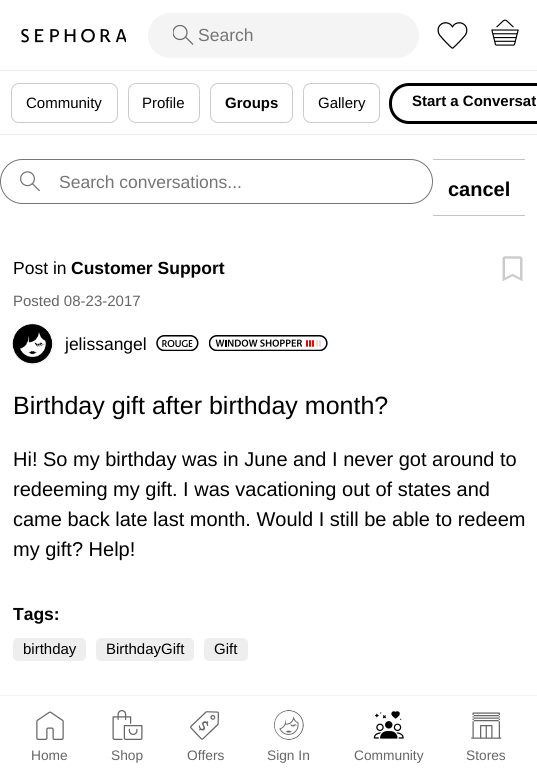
import math
import cairo


def use_color(cr, r, g, b):
  cr.set_source_rgb(r / 255, g / 255, b / 255)

def text(cr, x, y, s, family, size, color, bold=False, italic=False):
  cr.select_font_face(family, cairo.FONT_SLANT_ITALIC if italic else cairo.FONT_SLANT_NORMAL, cairo.FONT_WEIGHT_BOLD if bold else cairo.FONT_WEIGHT_NORMAL)
  cr.set_font_size(size)
  use_color(cr, *color)
  cr.move_to(x, y)
  cr.show_text(s)

def box(cr, x, y, w, h, *color):
  use_color(cr, *color)
  cr.rectangle(x, y, w, h)
  cr.fill()

def round_rect(cr, x, y, w, h, r):
  cr.new_sub_path()
  for i, (u, v) in enumerate([(x + w - r, y + h - r), (x + r, y + h - r), (x + r, y + r), (x + w - r, y + r)]):
    cr.arc(u, v, r, i * math.pi / 2, (i + 1) * math.pi / 2)
  cr.close_path()

def shadow(cr, x, y, w, h, r, blur, alpha):
  cr.push_group_with_content(cairo.CONTENT_ALPHA)
  cr.set_operator(cairo.OPERATOR_SOURCE)
  for i in range(15, -16, -2):
    e = blur * i / 6
    if min(w, h) + 2 * e > 0:
      cr.set_source_rgba(0, 0, 0, alpha * math.erfc((i - 1) / 8.5) / 2)
      round_rect(cr, x - e, y - e, w + 2 * e, h + 2 * e, max(0, min(r + e + blur * .6, min(w, h) / 2 + e)))
      cr.fill()
  cr.mask(cr.pop_group())

def picture(cr, path, x, y, w, h):
  cr.save()
  cr.set_source_surface(cairo.ImageSurface.create_from_png(path), x, y)
  cr.rectangle(x, y, w, h)
  cr.fill()
  cr.restore()

def draw(cr):
  use_color(cr, 255, 255, 255)
  cr.paint()
  use_color(cr, 238, 238, 238)
  cr.new_path()
  cr.move_to(0, 70)
  cr.line_to(0, 71)
  cr.line_to(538, 71)
  cr.line_to(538, 1)
  cr.line_to(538, 70)
  cr.close_path()
  cr.fill()
  picture(cr, "img_01.png", 21, 29, 105, 14)
  use_color(cr, 244, 244, 244)
  round_rect(cr, 148, 13, 271, 45, 22.5)
  cr.fill()
  cr.save()
  cr.rectangle(173, 25, 20, 20)
  cr.clip()
  cr.arc(180, 32.5, 7, 0, 2 * math.pi)
  use_color(cr, 102, 102, 102)
  cr.set_line_width(1.2)
  cr.stroke()
  cr.restore()
  cr.new_path()
  cr.move_to(185.5, 37)
  cr.line_to(193, 44.5)
  use_color(cr, 102, 102, 102)
  cr.set_line_width(1.2)
  cr.stroke()
  picture(cr, "img_02.png", 437, 22, 31, 27)
  picture(cr, "img_03.png", 491, 19, 28, 27)
  use_color(cr, 238, 238, 238)
  cr.new_path()
  cr.move_to(0, 134)
  cr.line_to(0, 135)
  cr.line_to(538, 135)
  cr.line_to(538, 73)
  cr.line_to(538, 134)
  cr.close_path()
  cr.fill()
  round_rect(cr, 11.5, 83.5, 106, 39, 7.5)
  use_color(cr, 204, 204, 204)
  cr.set_line_width(1)
  cr.stroke()
  round_rect(cr, 128.5, 83.5, 71, 39, 7.5)
  cr.stroke()
  round_rect(cr, 210.5, 83.5, 82, 39, 7.5)
  cr.stroke()
  round_rect(cr, 303.5, 83.5, 76, 39, 7.5)
  cr.stroke()
  round_rect(cr, 390.5, 84.5, 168, 38, 18.5)
  use_color(cr, 0, 0, 0)
  cr.set_line_width(3)
  cr.stroke()
  box(cr, 0, 695, 537, 1, 244, 244, 244)
  picture(cr, "img_04.png", 36, 711, 28, 29)
  picture(cr, "img_05.png", 112, 710, 31, 30)
  picture(cr, "img_06.png", 190, 711, 29, 29)
  picture(cr, "img_07.png", 274, 710, 30, 30)
  picture(cr, "img_08.png", 373, 711, 31, 28)
  picture(cr, "img_09.png", 471, 712, 31, 27)
  round_rect(cr, 0.5, 159.5, 432, 44, 22)
  use_color(cr, 117, 117, 117)
  cr.set_line_width(1)
  cr.stroke()
  picture(cr, "img_10.png", 20, 171, 20, 20)
  box(cr, 433, 159, 92, 1, 196, 196, 196)
  box(cr, 433, 215, 92, 1, 196, 196, 196)
  picture(cr, "img_11.png", 502, 256, 21, 25)
  cr.save()
  cr.set_fill_rule(cairo.FILL_RULE_EVEN_ODD)
  cr.new_path()
  cr.move_to(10, 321)
  cr.line_to(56, 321)
  cr.line_to(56, 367)
  cr.line_to(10, 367)
  cr.close_path()
  cr.move_to(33, 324)
  cr.curve_to(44, 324, 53, 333, 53, 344)
  cr.curve_to(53, 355, 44, 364, 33, 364)
  cr.curve_to(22, 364, 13, 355, 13, 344)
  cr.curve_to(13, 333, 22, 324, 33, 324)
  cr.close_path()
  cr.clip()
  use_color(cr, 196, 196, 196)
  shadow(cr, 13, 324, 40, 40, 20, 0.5, 1)
  cr.restore()
  picture(cr, "img_12.png", 12, 323, 41, 41)
  picture(cr, "img_13.png", 156, 335, 43, 16)
  picture(cr, "img_14.png", 209, 335, 119, 16)
  use_color(cr, 238, 238, 238)
  round_rect(cr, 13, 638, 73, 23, 5)
  cr.fill()
  round_rect(cr, 96, 638, 98, 23, 5)
  cr.fill()
  round_rect(cr, 204, 638, 44, 23, 5)
  cr.fill()
  text(cr, 198, 41, "Search", "Liberation Sans", 17.5, (117, 117, 117))
  text(cr, 26, 108, "Community", "Liberation Sans", 15, (0, 0, 0))
  text(cr, 142, 108, "Profile", "Liberation Sans", 15, (0, 0, 0))
  text(cr, 225, 108, "Groups", "Liberation Sans", 15, (0, 0, 0), bold=True)
  text(cr, 318, 108, "Gallery", "Liberation Sans", 15, (0, 0, 0))
  text(cr, 412, 106, "Start a Conversat", "Liberation Sans", 15, (0, 0, 0), bold=True)
  text(cr, 31, 760, "Home", "Liberation Sans", 13.75, (102, 102, 102))
  text(cr, 111, 760, "Shop", "Liberation Sans", 13.75, (102, 102, 102))
  text(cr, 187, 760, "Offers", "Liberation Sans", 13.75, (102, 102, 102))
  text(cr, 267, 760, "Sign In", "Liberation Sans", 13.75, (102, 102, 102))
  text(cr, 354, 760, "Community", "Liberation Sans", 13.75, (102, 102, 102))
  text(cr, 466, 760, "Stores", "Liberation Sans", 13.75, (102, 102, 102))
  text(cr, 59, 188, "Search conversations...", "Liberation Sans", 17.5, (117, 117, 117))
  text(cr, 448, 196, "cancel", "Liberation Sans", 20, (0, 0, 0), bold=True)
  text(cr, 13, 274, "Post in", "Liberation Sans", 17.5, (0, 0, 0))
  text(cr, 71, 274, "Customer Support", "Liberation Sans", 17.5, (0, 0, 0), bold=True)
  text(cr, 13, 306, "Posted 08-23-2017", "Liberation Sans", 15, (102, 102, 102))
  text(cr, 65, 350, "jelissangel", "Liberation Sans", 17.5, (0, 0, 0))
  text(cr, 13, 414, "Birthday gift after birthday month?", "Liberation Sans", 25, (0, 0, 0))
  text(cr, 13, 466, "Hi! So my birthday was in June and I never got around to", "Liberation Sans", 20, (0, 0, 0))
  text(cr, 13, 496, "redeeming my gift. I was vacationing out of states and", "Liberation Sans", 20, (0, 0, 0))
  text(cr, 13, 526, "came back late last month. Would I still be able to redeem", "Liberation Sans", 20, (0, 0, 0))
  text(cr, 13, 556, "my gift? Help!", "Liberation Sans", 20, (0, 0, 0))
  text(cr, 13, 620, "Tags:", "Liberation Sans", 17.5, (0, 0, 0), bold=True)
  text(cr, 23, 654, "birthday", "Liberation Sans", 15, (0, 0, 0))
  text(cr, 106, 654, "BirthdayGift", "Liberation Sans", 15, (0, 0, 0))
  text(cr, 214, 654, "Gift", "Liberation Sans", 15, (0, 0, 0))


surface = cairo.ImageSurface(cairo.FORMAT_RGB24, 537, 776)
cr = cairo.Context(surface)
options = cairo.FontOptions()
options.set_hint_metrics(cairo.HINT_METRICS_OFF)
options.set_hint_style(cairo.HINT_STYLE_NONE)
cr.set_font_options(options)
cr.set_miter_limit(4)
draw(cr)
surface.write_to_png("out.png")
